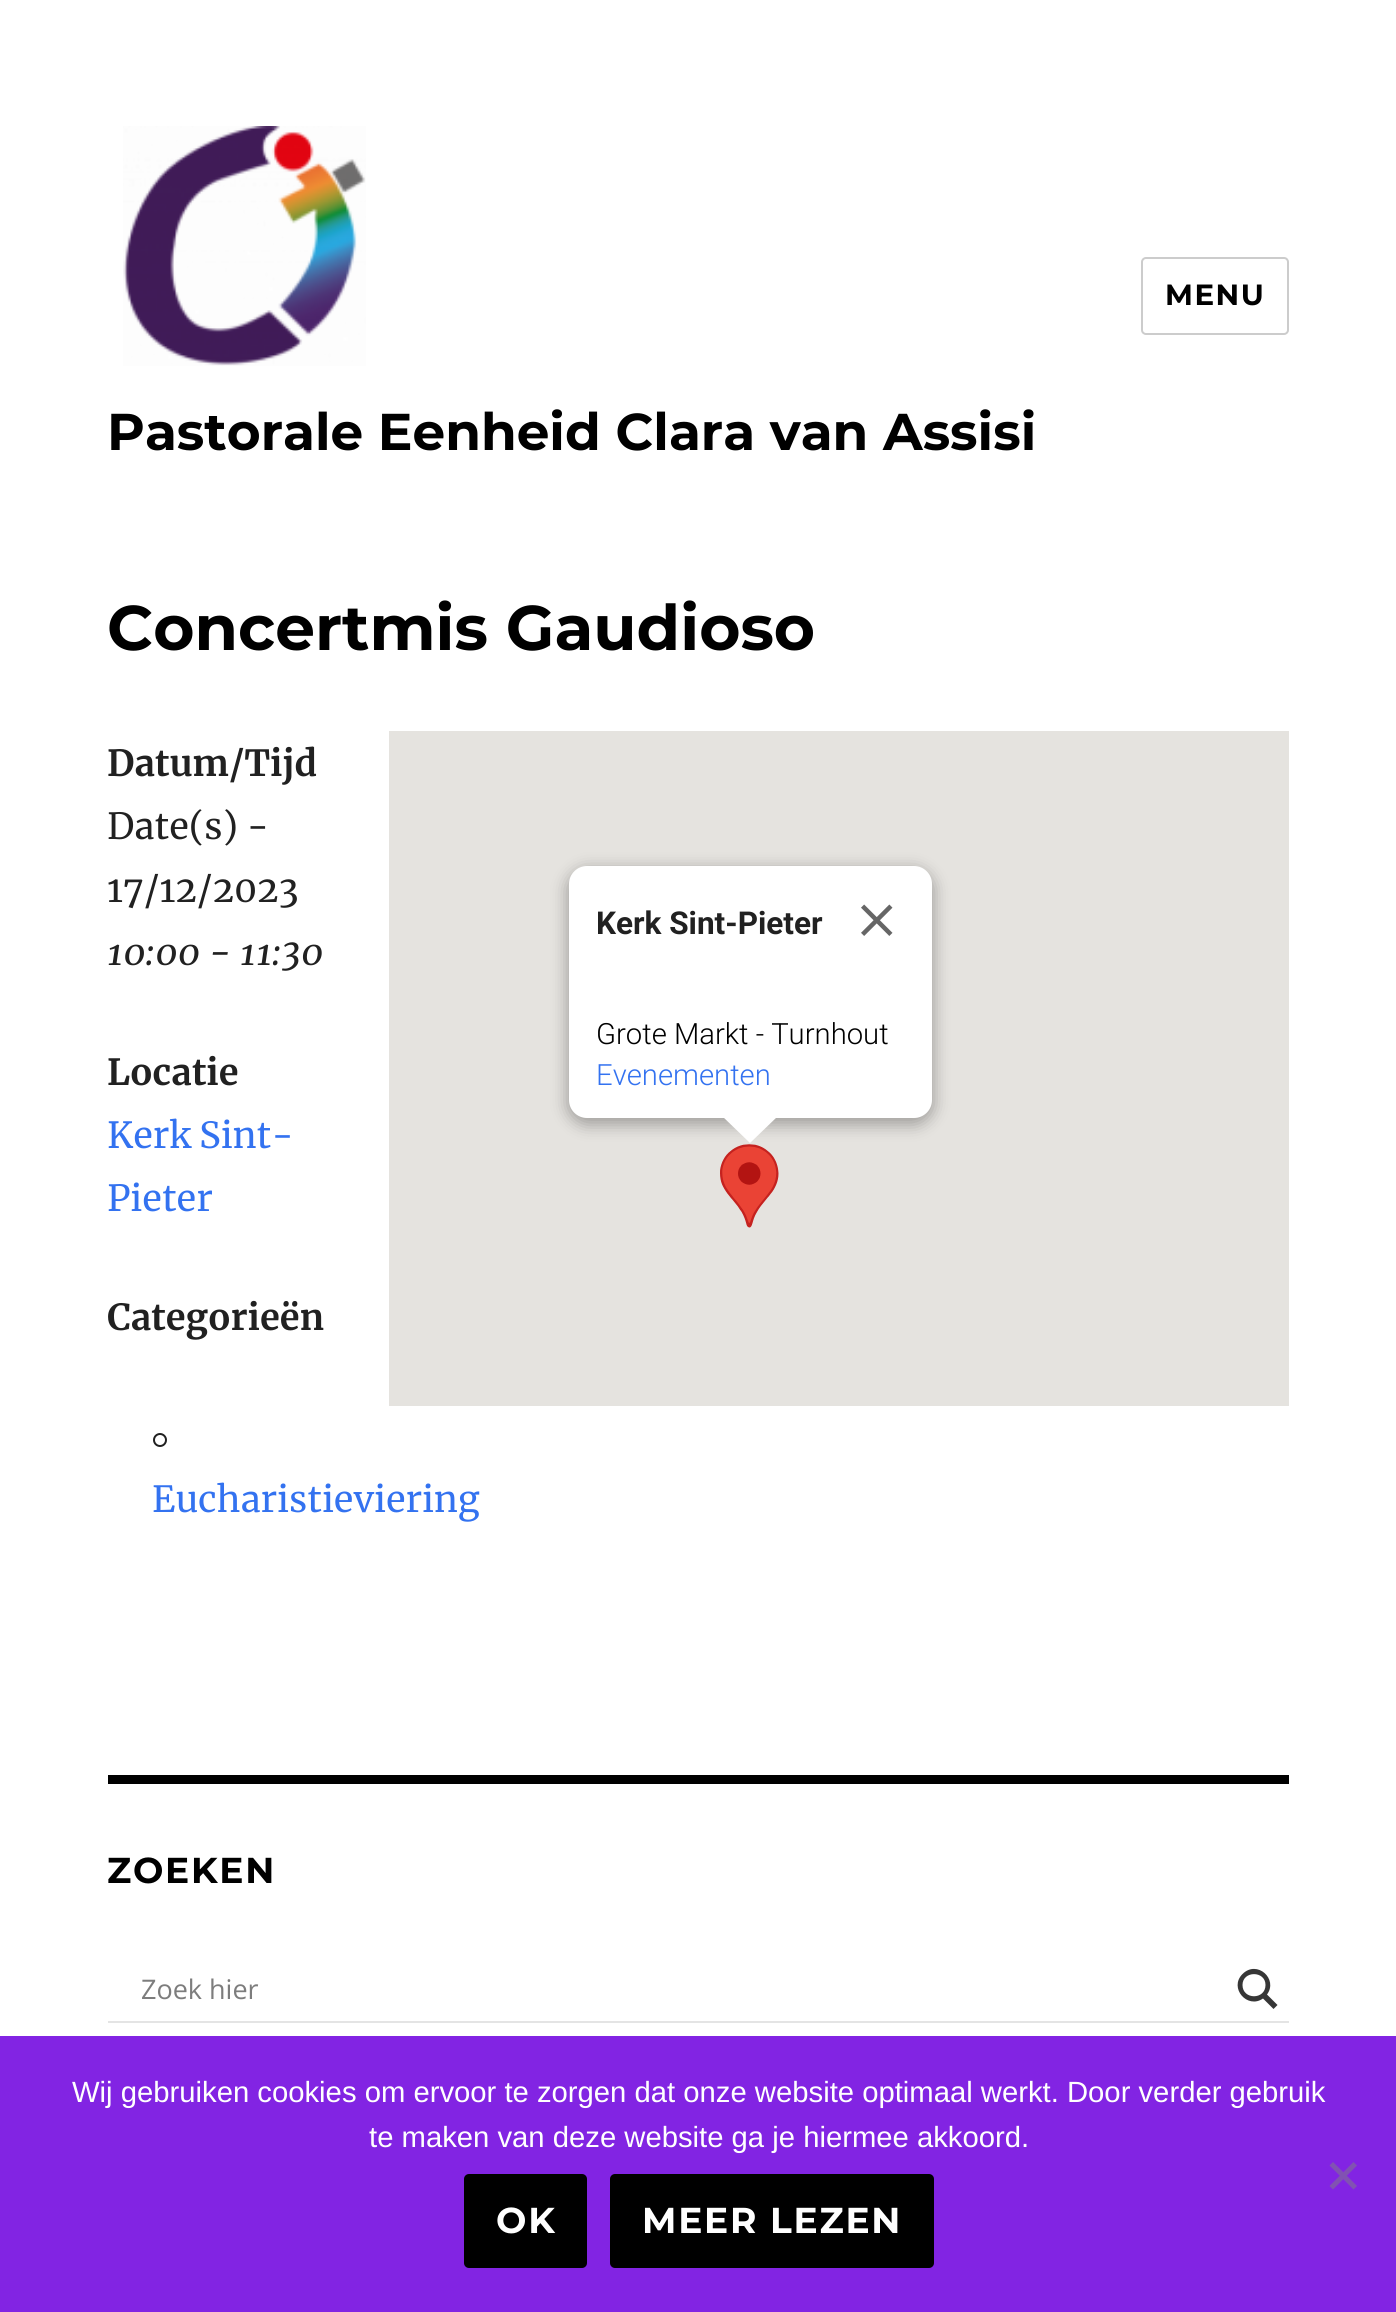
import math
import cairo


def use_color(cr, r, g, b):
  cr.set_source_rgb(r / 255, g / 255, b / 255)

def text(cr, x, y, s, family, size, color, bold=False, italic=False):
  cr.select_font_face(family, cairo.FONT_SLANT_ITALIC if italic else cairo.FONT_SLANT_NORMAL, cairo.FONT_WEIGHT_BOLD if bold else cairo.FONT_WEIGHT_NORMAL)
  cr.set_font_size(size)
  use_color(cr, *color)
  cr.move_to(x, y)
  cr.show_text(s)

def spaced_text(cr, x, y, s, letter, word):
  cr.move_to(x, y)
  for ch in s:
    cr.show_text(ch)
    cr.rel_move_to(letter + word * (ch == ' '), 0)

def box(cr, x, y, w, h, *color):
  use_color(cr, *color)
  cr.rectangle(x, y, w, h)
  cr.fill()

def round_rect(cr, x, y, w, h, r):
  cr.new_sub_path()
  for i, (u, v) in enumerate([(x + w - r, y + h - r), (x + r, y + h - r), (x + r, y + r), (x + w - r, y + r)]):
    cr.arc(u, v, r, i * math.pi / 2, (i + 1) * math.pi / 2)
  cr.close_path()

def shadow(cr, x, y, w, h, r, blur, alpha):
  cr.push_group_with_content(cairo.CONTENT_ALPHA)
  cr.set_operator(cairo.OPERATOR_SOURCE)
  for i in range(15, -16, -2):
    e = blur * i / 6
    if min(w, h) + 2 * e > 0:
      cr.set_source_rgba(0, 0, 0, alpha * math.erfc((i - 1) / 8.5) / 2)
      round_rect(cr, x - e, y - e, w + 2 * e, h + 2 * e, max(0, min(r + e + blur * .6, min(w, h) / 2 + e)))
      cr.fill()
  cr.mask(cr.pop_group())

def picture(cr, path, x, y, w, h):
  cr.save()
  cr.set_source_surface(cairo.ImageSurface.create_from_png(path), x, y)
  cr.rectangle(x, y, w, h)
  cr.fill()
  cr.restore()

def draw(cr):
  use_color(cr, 255, 255, 255)
  cr.paint()
  round_rect(cr, 1142, 258, 146, 76, 4)
  use_color(cr, 204, 204, 204)
  cr.stroke()
  picture(cr, "img_01.png", 123, 126, 243, 240)
  box(cr, 389, 731, 900, 675, 229, 227, 223)
  picture(cr, "img_03.png", 720, 1144, 59, 84)
  use_color(cr, 0, 0, 0)
  shadow(cr, 567, 869, 367, 256, 20, 8, 0.3)
  use_color(cr, 255, 255, 255)
  round_rect(cr, 569, 866, 363, 252, 18)
  cr.fill()
  picture(cr, "img_02.png", 861, 904, 32, 32)
  cr.new_path()
  cr.move_to(722, 1116)
  cr.line_to(750, 1143)
  cr.line_to(778, 1116)
  cr.close_path()
  cr.fill()
  cr.arc(160, 1440, 6, 0, 2 * math.pi)
  use_color(cr, 33, 33, 33)
  cr.stroke()
  box(cr, 108, 1775, 1181, 9, 0, 0, 0)
  box(cr, 108, 2021, 1181, 2, 228, 228, 228)
  use_color(cr, 54, 54, 54)
  cr.new_path()
  cr.move_to(1277.5, 2005)
  cr.line_to(1267, 1994.5)
  cr.curve_to(1278.5, 1979, 1257, 1959.5, 1242.5, 1974)
  cr.curve_to(1228.5, 1988, 1247.5, 2009.5, 1263, 1998.5)
  cr.line_to(1273.5, 2009)
  cr.close_path()
  cr.move_to(1242.5, 1985)
  cr.curve_to(1242.5, 1970.5, 1265.5, 1970.5, 1265.5, 1985)
  cr.curve_to(1265.5, 2000, 1242.5, 2000, 1242.5, 1985)
  cr.close_path()
  cr.fill()
  box(cr, 0, 2036, 1396, 276, 130, 36, 227)
  use_color(cr, 129, 82, 178)
  cr.new_path()
  cr.move_to(1353.5, 2162)
  cr.line_to(1357, 2165.5)
  cr.line_to(1333, 2189.5)
  cr.line_to(1329.5, 2186)
  cr.close_path()
  cr.fill()
  cr.new_path()
  cr.move_to(1329.5, 2165.5)
  cr.line_to(1333, 2162)
  cr.line_to(1357, 2186)
  cr.line_to(1353.5, 2189.5)
  cr.close_path()
  cr.fill()
  use_color(cr, 0, 0, 0)
  round_rect(cr, 464, 2174, 123, 94, 5)
  cr.fill()
  round_rect(cr, 610, 2174, 324, 94, 5)
  cr.fill()
  cr.select_font_face("Montserrat Thin")
  cr.set_font_size(29.25)
  spaced_text(cr, 1165, 305, "MENU", 1.5, 0)
  text(cr, 107, 450, "Pastorale Eenheid Clara van Assisi", "Montserrat Thin", 51.75, (0, 0, 0))
  text(cr, 107, 650, "Concertmis Gaudioso", "Montserrat Thin", 63, (0, 0, 0))
  text(cr, 107, 776, "Datum/Tijd", "Merriweather", 36, (33, 33, 33), bold=True)
  text(cr, 107, 839, "Date(s) -", "Merriweather", 36, (33, 33, 33))
  text(cr, 107, 902, "17/12/2023", "Merriweather", 36, (33, 33, 33))
  text(cr, 107, 965, "10:00 - 11:30", "Merriweather", 36, (33, 33, 33), italic=True)
  text(cr, 596, 934, "Kerk Sint-Pieter", "Roboto", 31.5, (33, 33, 33), bold=True)
  text(cr, 596, 1044, "Grote Markt - Turnhout", "Roboto Light", 29.25, (0, 0, 0))
  text(cr, 596, 1085, "Evenementen", "Roboto Light", 29.25, (51, 114, 240))
  text(cr, 107, 1085, "Locatie", "Merriweather", 36, (33, 33, 33), bold=True)
  text(cr, 107, 1148, "Kerk Sint-", "Merriweather", 36, (51, 114, 240))
  text(cr, 107, 1211, "Pieter", "Merriweather", 36, (51, 114, 240))
  text(cr, 107, 1330, "Categorieën", "Merriweather", 36, (33, 33, 33), bold=True)
  text(cr, 152, 1512, "Eucharistieviering", "Merriweather", 36, (51, 114, 240))
  cr.select_font_face("Montserrat Thin")
  use_color(cr, 0, 0, 0)
  spaced_text(cr, 107, 1883, "ZOEKEN", 1.75, 0)
  text(cr, 141, 1999, "Zoek hier", "Open Sans", 27, (125, 125, 125))
  text(cr, 72, 2102, "Wij gebruiken cookies om ervoor te zorgen dat onze website optimaal werkt. Door verder gebruik", "Liberation Sans", 29.25, (255, 255, 255))
  text(cr, 369, 2147, "te maken van deze website ga je hiermee akkoord.", "Liberation Sans", 29.25, (255, 255, 255))
  cr.select_font_face("Montserrat Thin")
  cr.set_font_size(36)
  spaced_text(cr, 496, 2233, "OK", 1.75, 0)
  spaced_text(cr, 642, 2233, "MEER LEZEN", 1.75, 0)


surface = cairo.ImageSurface(cairo.FORMAT_RGB24, 1396, 2312)
cr = cairo.Context(surface)
options = cairo.FontOptions()
options.set_hint_metrics(cairo.HINT_METRICS_OFF)
options.set_hint_style(cairo.HINT_STYLE_NONE)
cr.set_font_options(options)
cr.set_miter_limit(4)
draw(cr)
surface.write_to_png("out.png")
